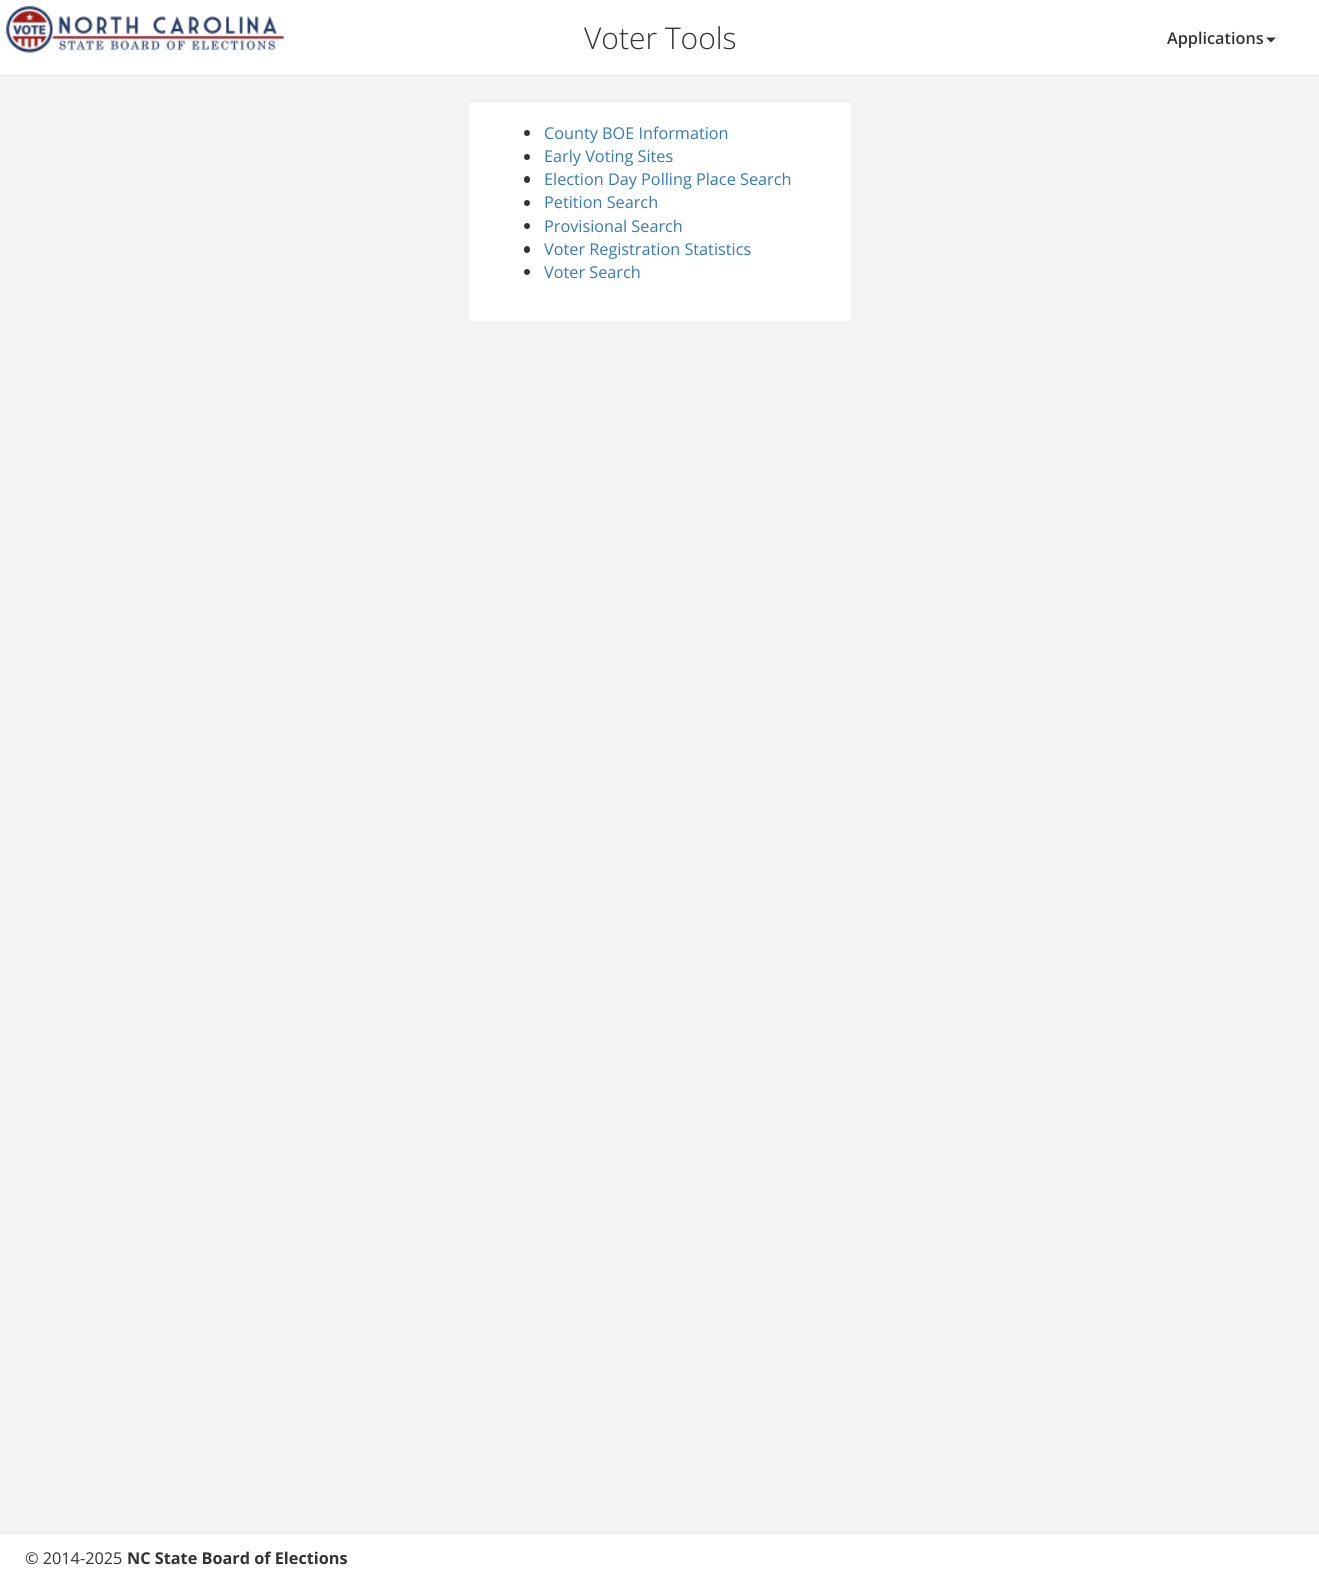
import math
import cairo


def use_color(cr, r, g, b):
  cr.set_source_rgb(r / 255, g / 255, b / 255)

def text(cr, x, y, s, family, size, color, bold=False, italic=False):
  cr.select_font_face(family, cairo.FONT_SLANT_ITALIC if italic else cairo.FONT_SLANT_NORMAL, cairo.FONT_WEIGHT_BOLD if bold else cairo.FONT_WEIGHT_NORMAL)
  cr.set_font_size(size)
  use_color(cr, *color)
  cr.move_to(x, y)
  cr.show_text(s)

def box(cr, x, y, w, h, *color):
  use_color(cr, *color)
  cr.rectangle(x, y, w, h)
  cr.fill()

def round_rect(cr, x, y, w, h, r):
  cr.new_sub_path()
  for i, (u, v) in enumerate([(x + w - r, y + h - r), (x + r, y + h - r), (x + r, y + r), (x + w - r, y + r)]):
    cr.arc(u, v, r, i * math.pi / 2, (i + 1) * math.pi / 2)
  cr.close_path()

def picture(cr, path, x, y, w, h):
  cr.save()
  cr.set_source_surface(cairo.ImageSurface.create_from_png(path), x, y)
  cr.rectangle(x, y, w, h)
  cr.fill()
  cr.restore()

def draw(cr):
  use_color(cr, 243, 243, 244)
  cr.paint()
  box(cr, 0, 0, 1319, 75, 255, 255, 255)
  box(cr, 0, 75, 1319, 1, 231, 234, 236)
  picture(cr, "img_01.png", 6, 6, 278, 47)
  use_color(cr, 51, 51, 51)
  cr.new_path()
  cr.move_to(1266, 37.5)
  cr.line_to(1276, 37.5)
  cr.line_to(1271, 42.5)
  cr.close_path()
  cr.fill()
  box(cr, 469, 102, 382, 219, 255, 255, 255)
  box(cr, 469, 101, 382, 1, 231, 234, 236)
  use_color(cr, 51, 51, 51)
  cr.arc(527, 133, 3, 0, 2 * math.pi)
  cr.fill()
  cr.arc(527, 157, 3, 0, 2 * math.pi)
  cr.fill()
  round_rect(cr, 524, 176, 6, 7, 3)
  cr.fill()
  cr.arc(527, 203, 3, 0, 2 * math.pi)
  cr.fill()
  cr.arc(527, 226, 3, 0, 2 * math.pi)
  cr.fill()
  round_rect(cr, 524, 246, 6, 7, 3)
  cr.fill()
  cr.arc(527, 272, 3, 0, 2 * math.pi)
  cr.fill()
  box(cr, 0, 1534, 1319, 48, 255, 255, 255)
  box(cr, 0, 1533, 1319, 1, 231, 234, 236)
  text(cr, 584, 49, "Voter Tools", "Open Sans Light", 30, (51, 51, 51))
  text(cr, 1167, 44, "Applications", "Open Sans SemiBold", 16.25, (51, 51, 51))
  text(cr, 544, 139, "County BOE Information", "Open Sans", 16.25, (51, 122, 183))
  text(cr, 544, 162, "Early Voting Sites", "Open Sans", 16.25, (51, 122, 183))
  text(cr, 544, 185, "Election Day Polling Place Search", "Open Sans", 16.25, (51, 122, 183))
  text(cr, 544, 208, "Petition Search", "Open Sans", 16.25, (51, 122, 183))
  text(cr, 544, 232, "Provisional Search", "Open Sans", 16.25, (51, 122, 183))
  text(cr, 544, 255, "Voter Registration Statistics", "Open Sans", 16.25, (51, 122, 183))
  text(cr, 544, 278, "Voter Search", "Open Sans", 16.25, (51, 122, 183))
  text(cr, 25, 1564, "© 2014-2025", "Open Sans", 16.25, (51, 51, 51))
  text(cr, 127, 1564, "NC State Board of Elections", "Open Sans", 16.25, (51, 51, 51), bold=True)


surface = cairo.ImageSurface(cairo.FORMAT_RGB24, 1319, 1582)
cr = cairo.Context(surface)
options = cairo.FontOptions()
options.set_hint_metrics(cairo.HINT_METRICS_OFF)
options.set_hint_style(cairo.HINT_STYLE_NONE)
cr.set_font_options(options)
cr.set_miter_limit(4)
draw(cr)
surface.write_to_png("out.png")
